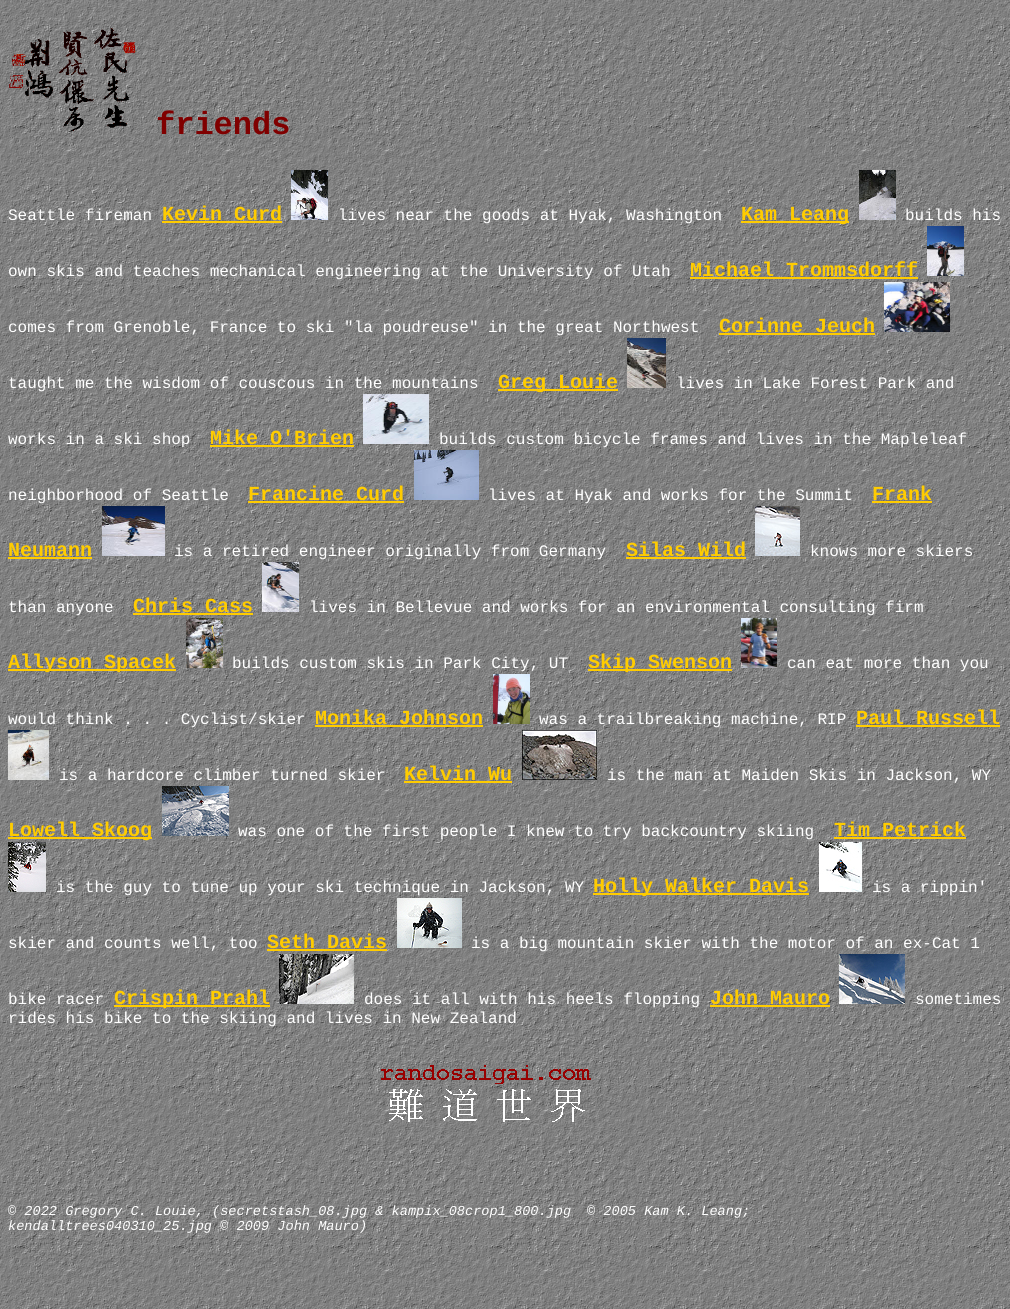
import math
import cairo


def use_color(cr, r, g, b):
  cr.set_source_rgb(r / 255, g / 255, b / 255)

def text(cr, x, y, s, family, size, color, bold=False, italic=False):
  cr.select_font_face(family, cairo.FONT_SLANT_ITALIC if italic else cairo.FONT_SLANT_NORMAL, cairo.FONT_WEIGHT_BOLD if bold else cairo.FONT_WEIGHT_NORMAL)
  cr.set_font_size(size)
  use_color(cr, *color)
  cr.move_to(x, y)
  cr.show_text(s)

def box(cr, x, y, w, h, *color):
  use_color(cr, *color)
  cr.rectangle(x, y, w, h)
  cr.fill()

def picture(cr, path, x, y, w, h):
  cr.save()
  cr.set_source_surface(cairo.ImageSurface.create_from_png(path), x, y)
  cr.rectangle(x, y, w, h)
  cr.fill()
  cr.restore()

def draw(cr):
  use_color(cr, 255, 255, 255)
  cr.paint()
  picture(cr, "img_01.png", 0, 0, 1010, 1309)
  picture(cr, "img_02.png", 9, 28, 127, 104)
  box(cr, 162, 221, 120, 2, 255, 204, 0)
  picture(cr, "img_03.png", 291, 170, 37, 50)
  box(cr, 741, 221, 108, 2, 255, 204, 0)
  picture(cr, "img_04.png", 859, 170, 37, 50)
  box(cr, 690, 277, 228, 2, 255, 204, 0)
  picture(cr, "img_05.png", 927, 226, 37, 50)
  box(cr, 719, 333, 156, 2, 255, 204, 0)
  picture(cr, "img_06.png", 884, 282, 66, 50)
  box(cr, 498, 389, 120, 2, 255, 204, 0)
  picture(cr, "img_07.png", 627, 338, 39, 50)
  box(cr, 210, 445, 144, 2, 255, 204, 0)
  picture(cr, "img_08.png", 363, 394, 66, 50)
  box(cr, 248, 501, 156, 2, 255, 204, 0)
  picture(cr, "img_09.png", 414, 450, 65, 50)
  box(cr, 872, 501, 60, 2, 255, 204, 0)
  box(cr, 8, 557, 84, 2, 255, 204, 0)
  picture(cr, "img_10.png", 102, 506, 63, 50)
  box(cr, 626, 557, 120, 2, 255, 204, 0)
  picture(cr, "img_11.png", 755, 506, 45, 50)
  box(cr, 133, 613, 120, 2, 255, 204, 0)
  picture(cr, "img_12.png", 262, 562, 37, 50)
  box(cr, 8, 669, 168, 2, 255, 204, 0)
  picture(cr, "img_13.png", 186, 618, 37, 50)
  box(cr, 588, 669, 144, 2, 255, 204, 0)
  picture(cr, "img_14.png", 741, 618, 36, 50)
  box(cr, 315, 725, 168, 2, 255, 204, 0)
  picture(cr, "img_15.png", 493, 674, 37, 50)
  box(cr, 856, 725, 144, 2, 255, 204, 0)
  picture(cr, "img_16.png", 8, 730, 41, 50)
  box(cr, 404, 781, 108, 2, 255, 204, 0)
  picture(cr, "img_17.png", 522, 730, 75, 50)
  box(cr, 8, 837, 144, 2, 255, 204, 0)
  picture(cr, "img_18.png", 162, 786, 67, 50)
  box(cr, 834, 837, 132, 2, 255, 204, 0)
  picture(cr, "img_19.png", 8, 842, 38, 50)
  box(cr, 593, 893, 216, 2, 255, 204, 0)
  picture(cr, "img_20.png", 819, 842, 43, 50)
  box(cr, 267, 949, 120, 2, 255, 204, 0)
  picture(cr, "img_21.png", 397, 898, 65, 50)
  box(cr, 114, 1005, 156, 2, 255, 204, 0)
  picture(cr, "img_22.png", 279, 954, 75, 50)
  box(cr, 710, 1005, 120, 2, 255, 204, 0)
  picture(cr, "img_23.png", 839, 954, 66, 50)
  picture(cr, "img_24.png", 381, 1065, 210, 57)
  text(cr, 156, 134, "friends", "Liberation Mono", 32, (128, 0, 0), bold=True)
  text(cr, 8, 220, "Seattle fireman", "Liberation Mono", 16, (255, 255, 255))
  text(cr, 162, 220, "Kevin Curd", "Liberation Mono", 20, (255, 204, 0), bold=True)
  text(cr, 338, 220, "lives near the goods at Hyak, Washington", "Liberation Mono", 16, (255, 255, 255))
  text(cr, 741, 220, "Kam Leang", "Liberation Mono", 20, (255, 204, 0), bold=True)
  text(cr, 905, 220, "builds his", "Liberation Mono", 16, (255, 255, 255))
  text(cr, 8, 276, "own skis and teaches mechanical engineering at the University of Utah", "Liberation Mono", 16, (255, 255, 255))
  text(cr, 690, 276, "Michael Trommsdorff", "Liberation Mono", 20, (255, 204, 0), bold=True)
  text(cr, 8, 332, "comes from Grenoble, France to ski \"la poudreuse\" in the great Northwest", "Liberation Mono", 16, (255, 255, 255))
  text(cr, 719, 332, "Corinne Jeuch", "Liberation Mono", 20, (255, 204, 0), bold=True)
  text(cr, 8, 388, "taught me the wisdom of couscous in the mountains", "Liberation Mono", 16, (255, 255, 255))
  text(cr, 498, 388, "Greg Louie", "Liberation Mono", 20, (255, 204, 0), bold=True)
  text(cr, 676, 388, "lives in Lake Forest Park and", "Liberation Mono", 16, (255, 255, 255))
  text(cr, 8, 444, "works in a ski shop", "Liberation Mono", 16, (255, 255, 255))
  text(cr, 210, 444, "Mike O'Brien", "Liberation Mono", 20, (255, 204, 0), bold=True)
  text(cr, 439, 444, "builds custom bicycle frames and lives in the Mapleleaf", "Liberation Mono", 16, (255, 255, 255))
  text(cr, 8, 500, "neighborhood of Seattle", "Liberation Mono", 16, (255, 255, 255))
  text(cr, 248, 500, "Francine Curd", "Liberation Mono", 20, (255, 204, 0), bold=True)
  text(cr, 488, 500, "lives at Hyak and works for the Summit", "Liberation Mono", 16, (255, 255, 255))
  text(cr, 872, 500, "Frank", "Liberation Mono", 20, (255, 204, 0), bold=True)
  text(cr, 8, 556, "Neumann", "Liberation Mono", 20, (255, 204, 0), bold=True)
  text(cr, 174, 556, "is a retired engineer originally from Germany", "Liberation Mono", 16, (255, 255, 255))
  text(cr, 626, 556, "Silas Wild", "Liberation Mono", 20, (255, 204, 0), bold=True)
  text(cr, 810, 556, "knows more skiers", "Liberation Mono", 16, (255, 255, 255))
  text(cr, 8, 612, "than anyone", "Liberation Mono", 16, (255, 255, 255))
  text(cr, 133, 612, "Chris Cass", "Liberation Mono", 20, (255, 204, 0), bold=True)
  text(cr, 309, 612, "lives in Bellevue and works for an environmental consulting firm", "Liberation Mono", 16, (255, 255, 255))
  text(cr, 8, 668, "Allyson Spacek", "Liberation Mono", 20, (255, 204, 0), bold=True)
  text(cr, 232, 668, "builds custom skis in Park City, UT", "Liberation Mono", 16, (255, 255, 255))
  text(cr, 588, 668, "Skip Swenson", "Liberation Mono", 20, (255, 204, 0), bold=True)
  text(cr, 787, 668, "can eat more than you", "Liberation Mono", 16, (255, 255, 255))
  text(cr, 8, 724, "would think . . . Cyclist/skier", "Liberation Mono", 16, (255, 255, 255))
  text(cr, 315, 724, "Monika Johnson", "Liberation Mono", 20, (255, 204, 0), bold=True)
  text(cr, 539, 724, "was a trailbreaking machine, RIP", "Liberation Mono", 16, (255, 255, 255))
  text(cr, 856, 724, "Paul Russell", "Liberation Mono", 20, (255, 204, 0), bold=True)
  text(cr, 59, 780, "is a hardcore climber turned skier", "Liberation Mono", 16, (255, 255, 255))
  text(cr, 404, 780, "Kelvin Wu", "Liberation Mono", 20, (255, 204, 0), bold=True)
  text(cr, 607, 780, "is the man at Maiden Skis in Jackson, WY", "Liberation Mono", 16, (255, 255, 255))
  text(cr, 8, 836, "Lowell Skoog", "Liberation Mono", 20, (255, 204, 0), bold=True)
  text(cr, 238, 836, "was one of the first people I knew to try backcountry skiing", "Liberation Mono", 16, (255, 255, 255))
  text(cr, 834, 836, "Tim Petrick", "Liberation Mono", 20, (255, 204, 0), bold=True)
  text(cr, 56, 892, "is the guy to tune up your ski technique in Jackson, WY", "Liberation Mono", 16, (255, 255, 255))
  text(cr, 593, 892, "Holly Walker Davis", "Liberation Mono", 20, (255, 204, 0), bold=True)
  text(cr, 872, 892, "is a rippin'", "Liberation Mono", 16, (255, 255, 255))
  text(cr, 8, 948, "skier and counts well, too", "Liberation Mono", 16, (255, 255, 255))
  text(cr, 267, 948, "Seth Davis", "Liberation Mono", 20, (255, 204, 0), bold=True)
  text(cr, 471, 948, "is a big mountain skier with the motor of an ex-Cat 1", "Liberation Mono", 16, (255, 255, 255))
  text(cr, 8, 1004, "bike racer", "Liberation Mono", 16, (255, 255, 255))
  text(cr, 114, 1004, "Crispin Prahl", "Liberation Mono", 20, (255, 204, 0), bold=True)
  text(cr, 364, 1004, "does it all with his heels flopping", "Liberation Mono", 16, (255, 255, 255))
  text(cr, 710, 1004, "John Mauro", "Liberation Mono", 20, (255, 204, 0), bold=True)
  text(cr, 915, 1004, "sometimes", "Liberation Mono", 16, (255, 255, 255))
  text(cr, 8, 1023, "rides his bike to the skiing and lives in New Zealand", "Liberation Mono", 16, (255, 255, 255))
  text(cr, 8, 1215, "© 2022 Gregory C. Louie, (secretstash_08.jpg & kampix_08crop1_800.jpg", "Liberation Mono", 13.6, (255, 255, 255), italic=True)
  text(cr, 587, 1215, "© 2005 Kam K. Leang;", "Liberation Mono", 13.6, (255, 255, 255), italic=True)
  text(cr, 8, 1230, "kendalltrees040310_25.jpg © 2009 John Mauro)", "Liberation Mono", 13.6, (255, 255, 255), italic=True)


surface = cairo.ImageSurface(cairo.FORMAT_RGB24, 1010, 1309)
cr = cairo.Context(surface)
options = cairo.FontOptions()
options.set_hint_metrics(cairo.HINT_METRICS_OFF)
options.set_hint_style(cairo.HINT_STYLE_NONE)
cr.set_font_options(options)
cr.set_miter_limit(4)
draw(cr)
surface.write_to_png("out.png")
